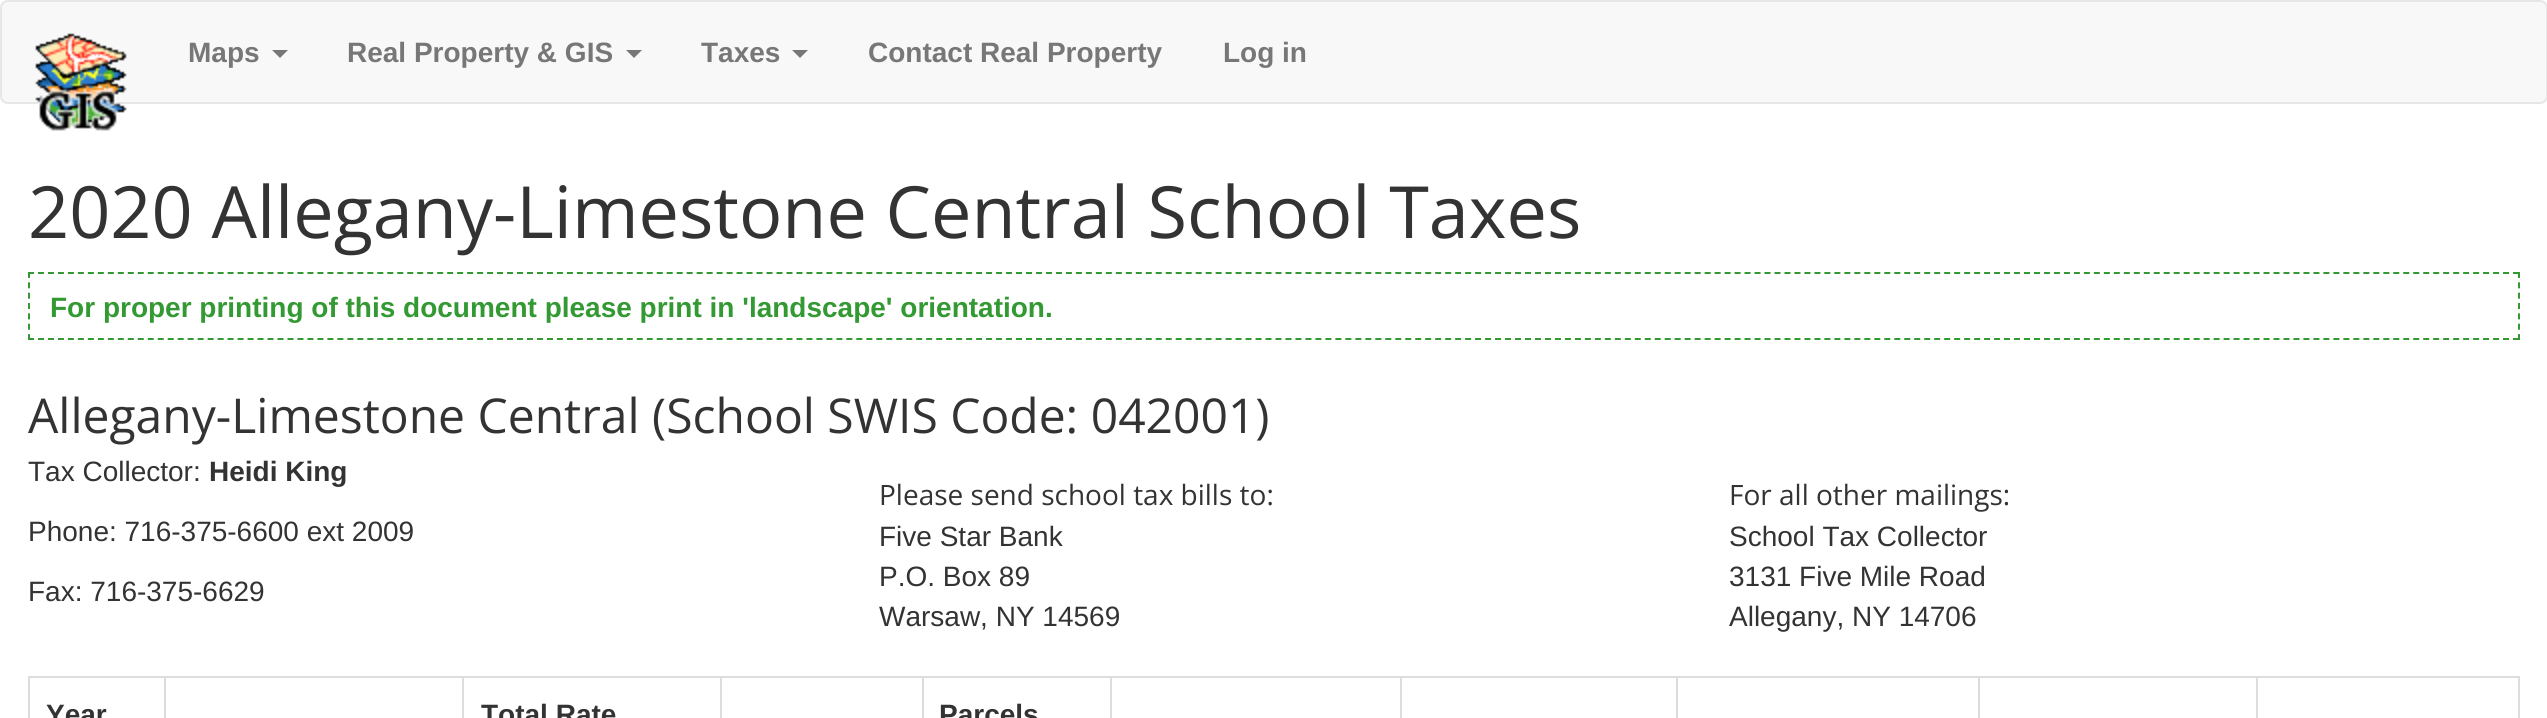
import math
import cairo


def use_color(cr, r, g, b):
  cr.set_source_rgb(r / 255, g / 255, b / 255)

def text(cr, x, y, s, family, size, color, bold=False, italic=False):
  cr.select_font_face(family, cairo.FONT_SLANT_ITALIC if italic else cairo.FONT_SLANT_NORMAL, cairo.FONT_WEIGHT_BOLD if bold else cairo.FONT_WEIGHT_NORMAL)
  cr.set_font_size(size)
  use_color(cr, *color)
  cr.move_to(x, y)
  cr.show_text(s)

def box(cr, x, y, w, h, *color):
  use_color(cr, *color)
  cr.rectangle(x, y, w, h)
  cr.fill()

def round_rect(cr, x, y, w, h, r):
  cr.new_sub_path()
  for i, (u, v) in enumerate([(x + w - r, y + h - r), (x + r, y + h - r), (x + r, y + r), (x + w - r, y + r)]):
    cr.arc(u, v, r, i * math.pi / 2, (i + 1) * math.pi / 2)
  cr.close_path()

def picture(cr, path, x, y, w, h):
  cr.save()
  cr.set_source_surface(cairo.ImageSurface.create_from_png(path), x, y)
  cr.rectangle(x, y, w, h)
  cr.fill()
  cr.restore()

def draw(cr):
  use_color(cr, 255, 255, 255)
  cr.paint()
  use_color(cr, 248, 248, 248)
  round_rect(cr, 1, 1, 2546, 102, 7)
  cr.fill_preserve()
  use_color(cr, 231, 231, 231)
  cr.stroke()
  picture(cr, "img_01.png", 35, 33, 92, 98)
  use_color(cr, 119, 119, 119)
  cr.new_path()
  cr.move_to(272, 50)
  cr.line_to(288, 50)
  cr.line_to(280, 58)
  cr.close_path()
  cr.fill()
  cr.new_path()
  cr.move_to(626, 50)
  cr.line_to(642, 50)
  cr.line_to(634, 58)
  cr.close_path()
  cr.fill()
  cr.new_path()
  cr.move_to(792, 50)
  cr.line_to(808, 50)
  cr.line_to(800, 58)
  cr.close_path()
  cr.fill()
  cr.new_path()
  cr.move_to(28, 273)
  cr.line_to(2520, 273)
  use_color(cr, 51, 153, 51)
  cr.set_dash([6, 3.98])
  cr.stroke()
  cr.new_path()
  cr.move_to(2519, 272)
  cr.line_to(2519, 340)
  cr.set_dash([6, 4.34])
  cr.stroke()
  cr.new_path()
  cr.move_to(28, 339)
  cr.line_to(2520, 339)
  cr.set_dash([6, 3.98])
  cr.stroke()
  cr.new_path()
  cr.move_to(29, 272)
  cr.line_to(29, 340)
  cr.set_dash([6, 4.34])
  cr.stroke()
  box(cr, 28, 676, 2492, 2, 221, 221, 221)
  box(cr, 2518, 676, 2, 42, 221, 221, 221)
  box(cr, 28, 676, 2, 42, 221, 221, 221)
  box(cr, 164, 676, 2, 42, 221, 221, 221)
  box(cr, 462, 676, 2, 42, 221, 221, 221)
  box(cr, 720, 676, 2, 42, 221, 221, 221)
  box(cr, 922, 676, 2, 42, 221, 221, 221)
  box(cr, 1110, 676, 2, 42, 221, 221, 221)
  box(cr, 1400, 676, 2, 42, 221, 221, 221)
  box(cr, 1676, 676, 2, 42, 221, 221, 221)
  box(cr, 1978, 676, 2, 42, 221, 221, 221)
  box(cr, 2256, 676, 2, 42, 221, 221, 221)
  text(cr, 188, 62, "Maps", "Liberation Sans", 28, (119, 119, 119), bold=True)
  text(cr, 347, 62, "Real Property & GIS", "Liberation Sans", 28, (119, 119, 119), bold=True)
  text(cr, 701, 62, "Taxes", "Liberation Sans", 28, (119, 119, 119), bold=True)
  text(cr, 868, 62, "Contact Real Property", "Liberation Sans", 28, (119, 119, 119), bold=True)
  text(cr, 1223, 62, "Log in", "Liberation Sans", 28, (119, 119, 119), bold=True)
  text(cr, 28, 238, "2020 Allegany-Limestone Central School Taxes", "Open Sans", 72, (51, 51, 51))
  text(cr, 50, 317, "For proper printing of this document please print in 'landscape' orientation.", "Liberation Sans", 28, (51, 153, 51), bold=True)
  text(cr, 28, 433, "Allegany-Limestone Central (School SWIS Code: 042001)", "Open Sans", 48, (51, 51, 51))
  text(cr, 28, 481, "Tax Collector:", "Liberation Sans", 28, (51, 51, 51))
  text(cr, 209, 481, "Heidi King", "Liberation Sans", 28, (51, 51, 51), bold=True)
  text(cr, 28, 541, "Phone: 716-375-6600 ext 2009", "Liberation Sans", 28, (51, 51, 51))
  text(cr, 28, 601, "Fax: 716-375-6629", "Liberation Sans", 28, (51, 51, 51))
  text(cr, 879, 505, "Please send school tax bills to:", "Open Sans", 28, (51, 51, 51))
  text(cr, 879, 546, "Five Star Bank", "Liberation Sans", 28, (51, 51, 51))
  text(cr, 879, 586, "P.O. Box 89", "Liberation Sans", 28, (51, 51, 51))
  text(cr, 879, 626, "Warsaw, NY 14569", "Liberation Sans", 28, (51, 51, 51))
  text(cr, 1729, 505, "For all other mailings:", "Open Sans", 28, (51, 51, 51))
  text(cr, 1729, 546, "School Tax Collector", "Liberation Sans", 28, (51, 51, 51))
  text(cr, 1729, 586, "3131 Five Mile Road", "Liberation Sans", 28, (51, 51, 51))
  text(cr, 1729, 626, "Allegany, NY 14706", "Liberation Sans", 28, (51, 51, 51))
  text(cr, 46, 724, "Year", "Liberation Sans", 28, (51, 51, 51), bold=True)
  text(cr, 481, 724, "Total Rate", "Liberation Sans", 28, (51, 51, 51), bold=True)
  text(cr, 939, 724, "Parcels", "Liberation Sans", 28, (51, 51, 51), bold=True)


surface = cairo.ImageSurface(cairo.FORMAT_RGB24, 2547, 718)
cr = cairo.Context(surface)
options = cairo.FontOptions()
options.set_hint_metrics(cairo.HINT_METRICS_OFF)
options.set_hint_style(cairo.HINT_STYLE_NONE)
cr.set_font_options(options)
cr.set_miter_limit(4)
draw(cr)
surface.write_to_png("out.png")
